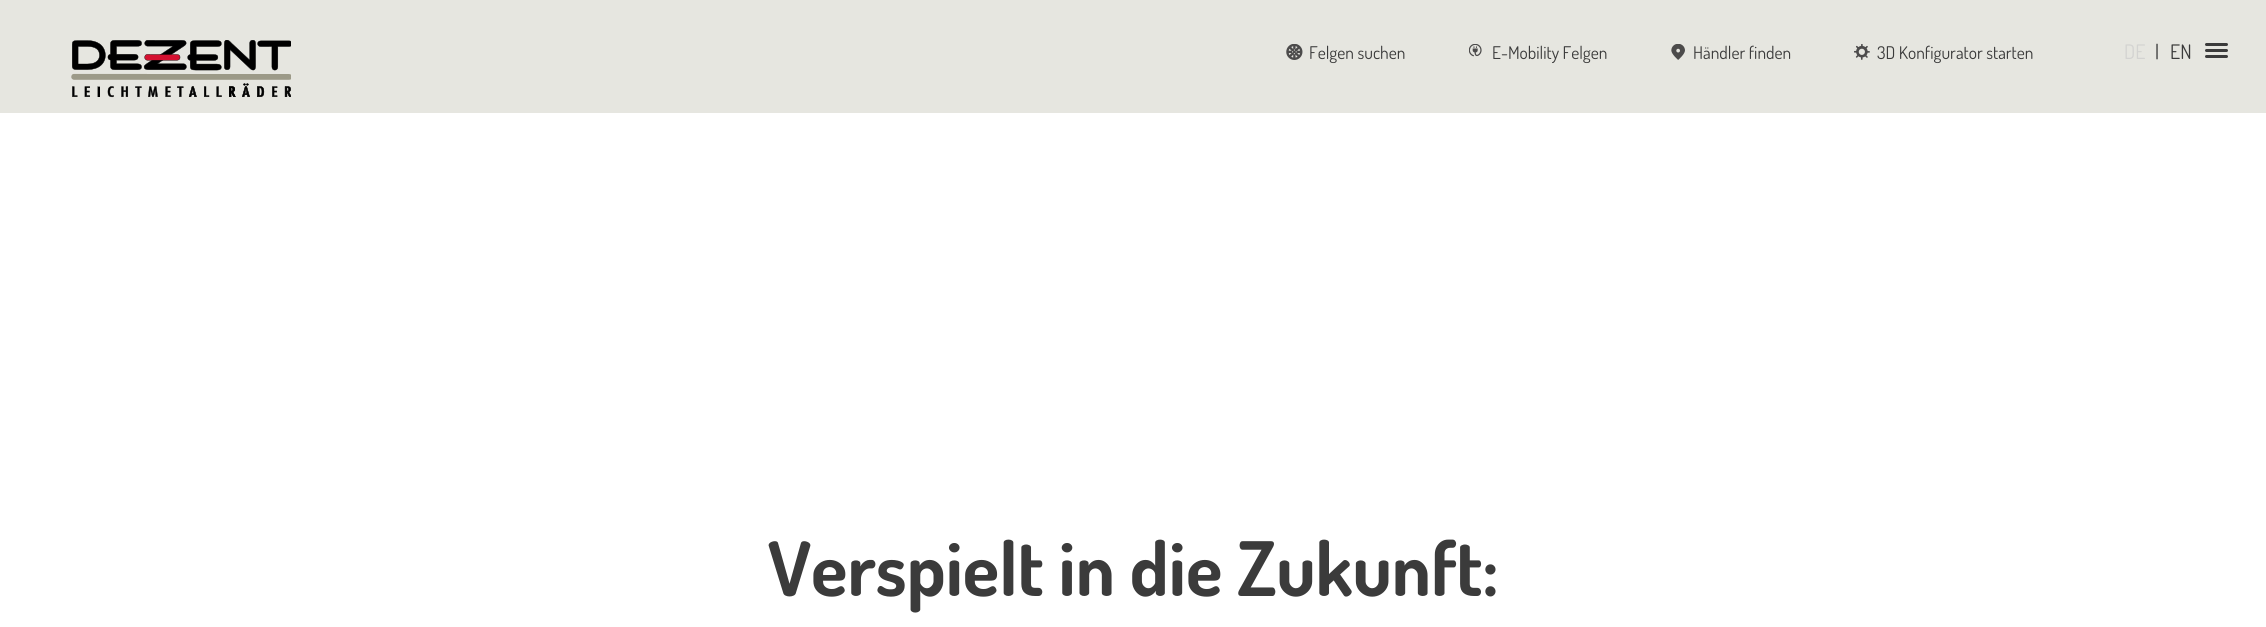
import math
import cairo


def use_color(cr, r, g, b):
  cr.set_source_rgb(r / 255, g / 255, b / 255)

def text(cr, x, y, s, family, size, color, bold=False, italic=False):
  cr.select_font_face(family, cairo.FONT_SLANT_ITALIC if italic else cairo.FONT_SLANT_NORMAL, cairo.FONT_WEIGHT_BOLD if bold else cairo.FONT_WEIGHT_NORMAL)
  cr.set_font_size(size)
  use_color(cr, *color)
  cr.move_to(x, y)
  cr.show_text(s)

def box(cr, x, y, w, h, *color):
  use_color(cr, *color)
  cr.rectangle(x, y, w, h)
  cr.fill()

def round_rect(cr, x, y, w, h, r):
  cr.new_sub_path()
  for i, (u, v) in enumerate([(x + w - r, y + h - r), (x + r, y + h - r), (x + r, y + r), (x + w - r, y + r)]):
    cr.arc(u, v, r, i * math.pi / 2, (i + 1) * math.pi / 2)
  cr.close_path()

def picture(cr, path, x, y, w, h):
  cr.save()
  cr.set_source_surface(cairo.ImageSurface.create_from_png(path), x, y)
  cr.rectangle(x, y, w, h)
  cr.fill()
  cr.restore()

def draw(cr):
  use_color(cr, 255, 255, 255)
  cr.paint()
  box(cr, 0, 0, 2266, 113, 230, 230, 224)
  picture(cr, "img_01.png", 71, 40, 220, 58)
  picture(cr, "img_02.png", 1286, 44, 17, 16)
  picture(cr, "img_03.png", 1469, 44, 13, 13)
  picture(cr, "img_04.png", 1671, 44, 14, 16)
  picture(cr, "img_05.png", 1854, 44, 16, 16)
  use_color(cr, 59, 59, 59)
  round_rect(cr, 2205, 49, 23, 3, 1.5)
  cr.fill()
  round_rect(cr, 2205, 43, 23, 3, 1.5)
  cr.fill()
  round_rect(cr, 2205, 55, 23, 3, 1.5)
  cr.fill()
  text(cr, 1309, 59, "Felgen suchen", "Dosis", 17.5, (59, 59, 59))
  text(cr, 1492, 59, "E-Mobility Felgen", "Dosis", 17.5, (59, 59, 59))
  text(cr, 1693, 59, "Händler finden", "Dosis", 17.5, (59, 59, 59))
  text(cr, 1877, 59, "3D Konfigurator starten", "Dosis", 17.5, (59, 59, 59))
  text(cr, 2124, 59, "DE", "Dosis", 20, (211, 211, 209))
  text(cr, 2155, 59, "|", "Dosis", 20, (59, 59, 59))
  text(cr, 2170, 59, "EN", "Dosis", 20, (59, 59, 59))
  text(cr, 768, 596, "Verspielt in die Zukunft:", "Dosis", 75, (59, 59, 59), bold=True)


surface = cairo.ImageSurface(cairo.FORMAT_RGB24, 2266, 627)
cr = cairo.Context(surface)
options = cairo.FontOptions()
options.set_hint_metrics(cairo.HINT_METRICS_OFF)
options.set_hint_style(cairo.HINT_STYLE_NONE)
cr.set_font_options(options)
cr.set_miter_limit(4)
draw(cr)
surface.write_to_png("out.png")
